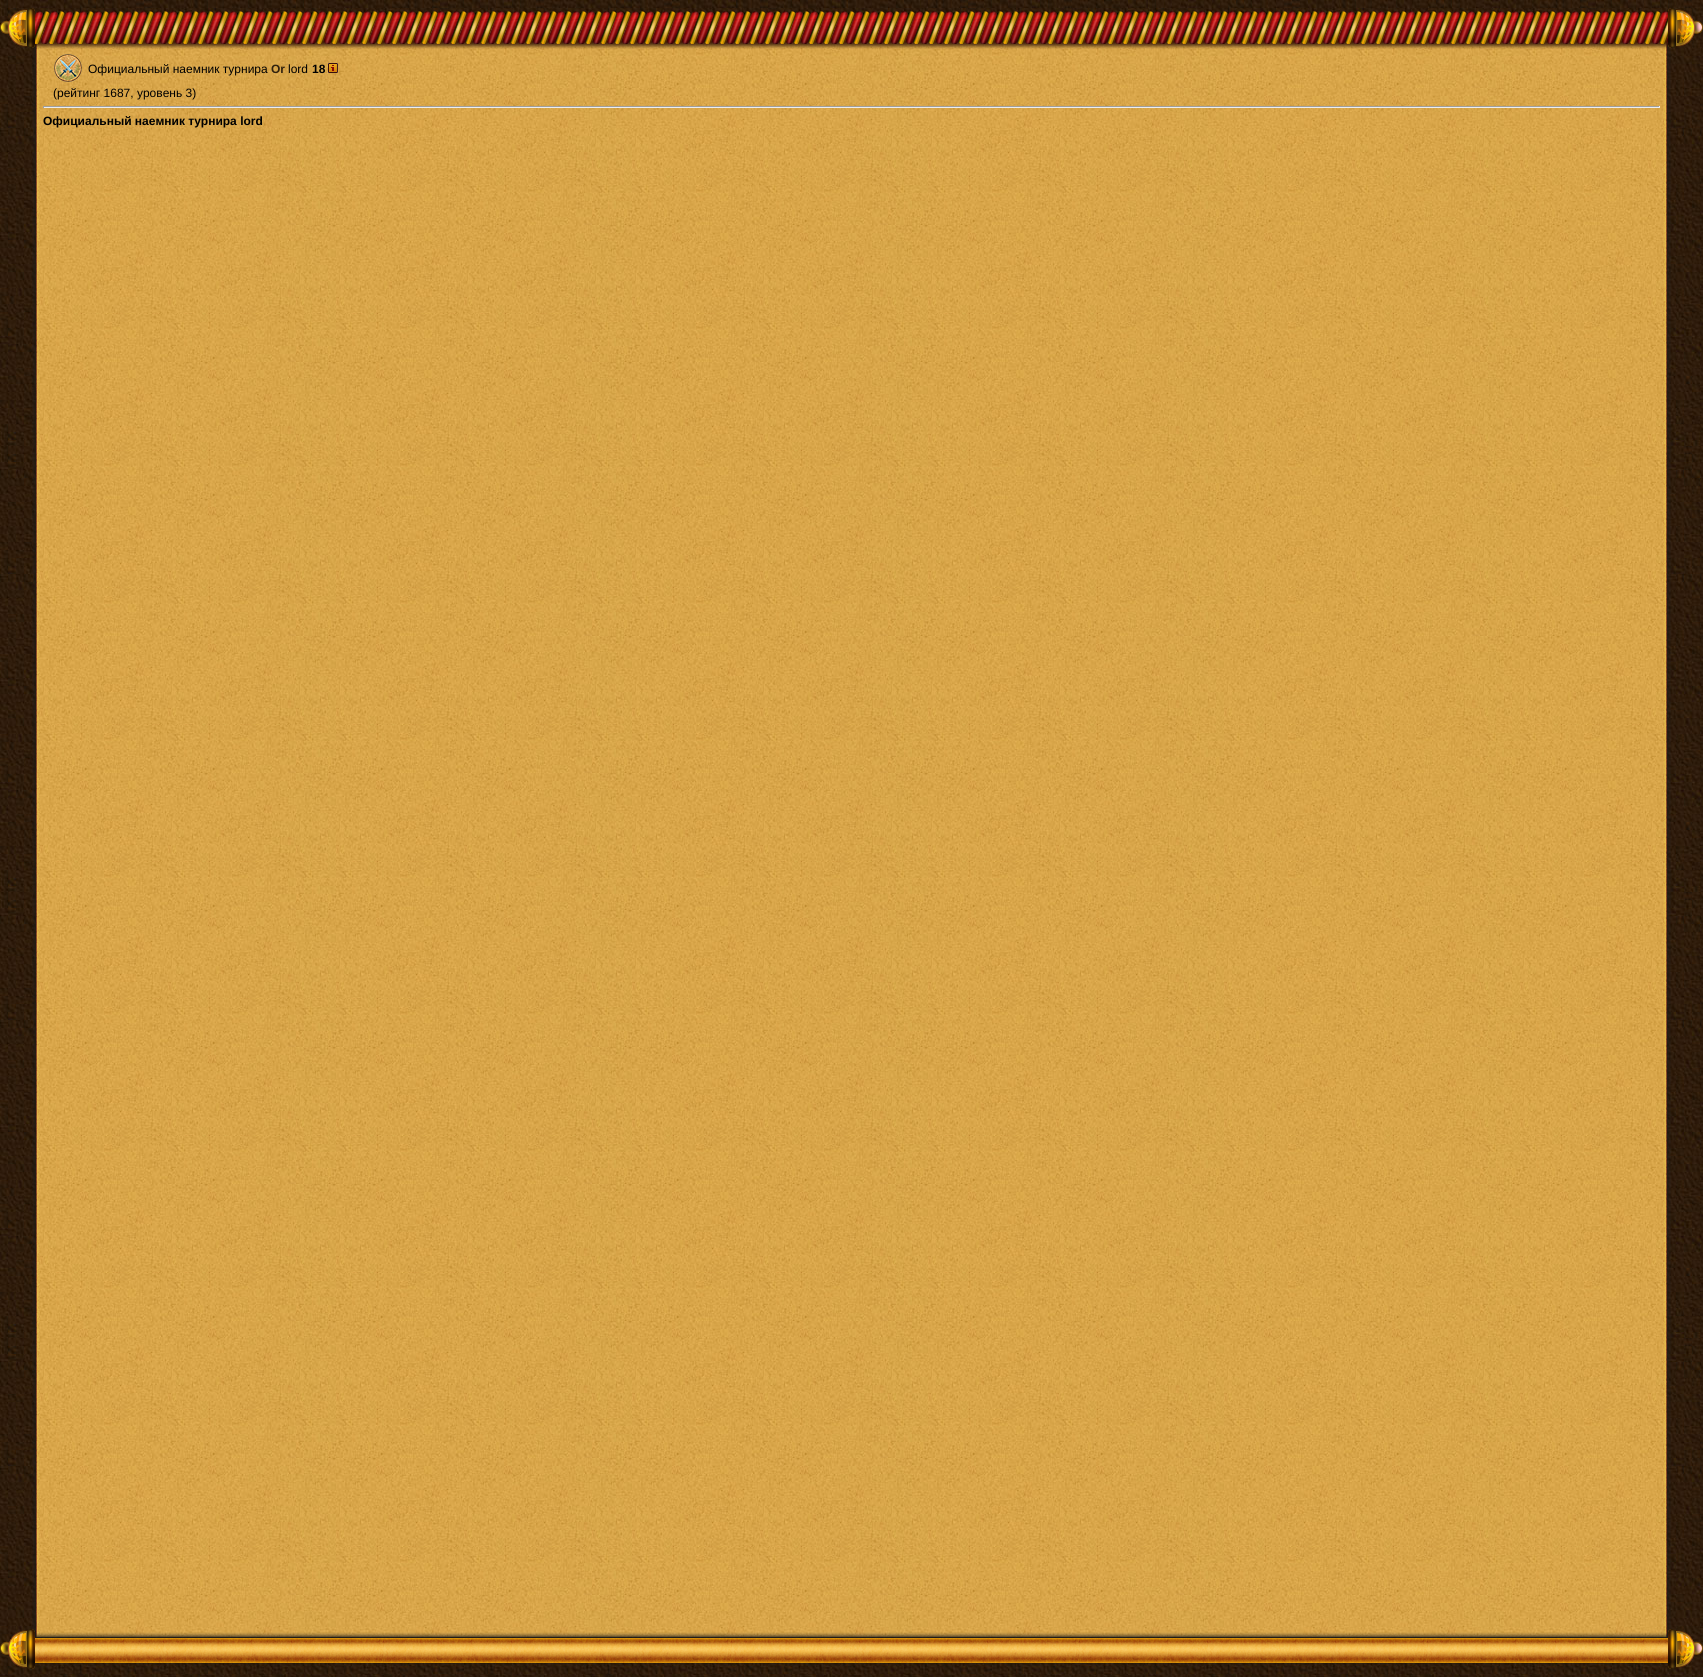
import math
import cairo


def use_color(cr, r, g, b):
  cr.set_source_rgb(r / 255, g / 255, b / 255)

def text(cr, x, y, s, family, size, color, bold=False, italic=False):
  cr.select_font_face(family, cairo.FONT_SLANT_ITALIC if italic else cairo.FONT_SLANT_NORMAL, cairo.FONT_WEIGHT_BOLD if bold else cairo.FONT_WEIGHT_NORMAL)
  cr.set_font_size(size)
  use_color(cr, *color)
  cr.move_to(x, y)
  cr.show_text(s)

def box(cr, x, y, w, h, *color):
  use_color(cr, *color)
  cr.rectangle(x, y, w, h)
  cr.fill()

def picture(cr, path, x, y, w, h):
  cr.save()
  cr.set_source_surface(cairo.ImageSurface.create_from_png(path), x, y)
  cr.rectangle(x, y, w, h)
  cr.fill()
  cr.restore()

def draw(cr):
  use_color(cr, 255, 255, 255)
  cr.paint()
  picture(cr, "img_01.png", 0, 0, 1703, 1677)
  picture(cr, "img_05.png", 32, 42, 8, 1595)
  picture(cr, "img_02.png", 0, 8, 35, 40)
  picture(cr, "img_06.png", 40, 42, 1623, 1595)
  picture(cr, "img_09.png", 1663, 42, 8, 1595)
  picture(cr, "img_03.png", 35, 11, 1633, 38)
  picture(cr, "img_04.png", 1668, 8, 35, 40)
  picture(cr, "img_07.png", 54, 54, 28, 28)
  picture(cr, "img_08.png", 328, 63, 10, 10)
  box(cr, 43, 106, 1617, 1, 159, 159, 159)
  box(cr, 1659, 106, 1, 2, 238, 238, 238)
  box(cr, 43, 107, 1617, 1, 238, 238, 238)
  box(cr, 43, 106, 1, 2, 159, 159, 159)
  picture(cr, "img_10.png", 0, 1629, 35, 40)
  picture(cr, "img_11.png", 35, 1632, 1633, 32)
  picture(cr, "img_12.png", 1668, 1629, 35, 40)
  text(cr, 88, 73, "Официальный наемник турнира", "Liberation Sans", 12, (0, 0, 0))
  text(cr, 271, 73, "Or", "Liberation Sans", 12, (48, 33, 14), bold=True)
  text(cr, 288, 73, "lord", "Liberation Sans", 12, (0, 0, 0))
  text(cr, 312, 73, "18", "Liberation Sans", 12, (0, 0, 0), bold=True)
  text(cr, 53, 97, "(рейтинг 1687, уровень 3)", "Liberation Sans", 12, (0, 0, 0))
  text(cr, 43, 125, "Официальный наемник турнира lord", "Liberation Sans", 12, (0, 0, 0), bold=True)


surface = cairo.ImageSurface(cairo.FORMAT_RGB24, 1703, 1677)
cr = cairo.Context(surface)
options = cairo.FontOptions()
options.set_hint_metrics(cairo.HINT_METRICS_OFF)
options.set_hint_style(cairo.HINT_STYLE_NONE)
cr.set_font_options(options)
cr.set_miter_limit(4)
draw(cr)
surface.write_to_png("out.png")
